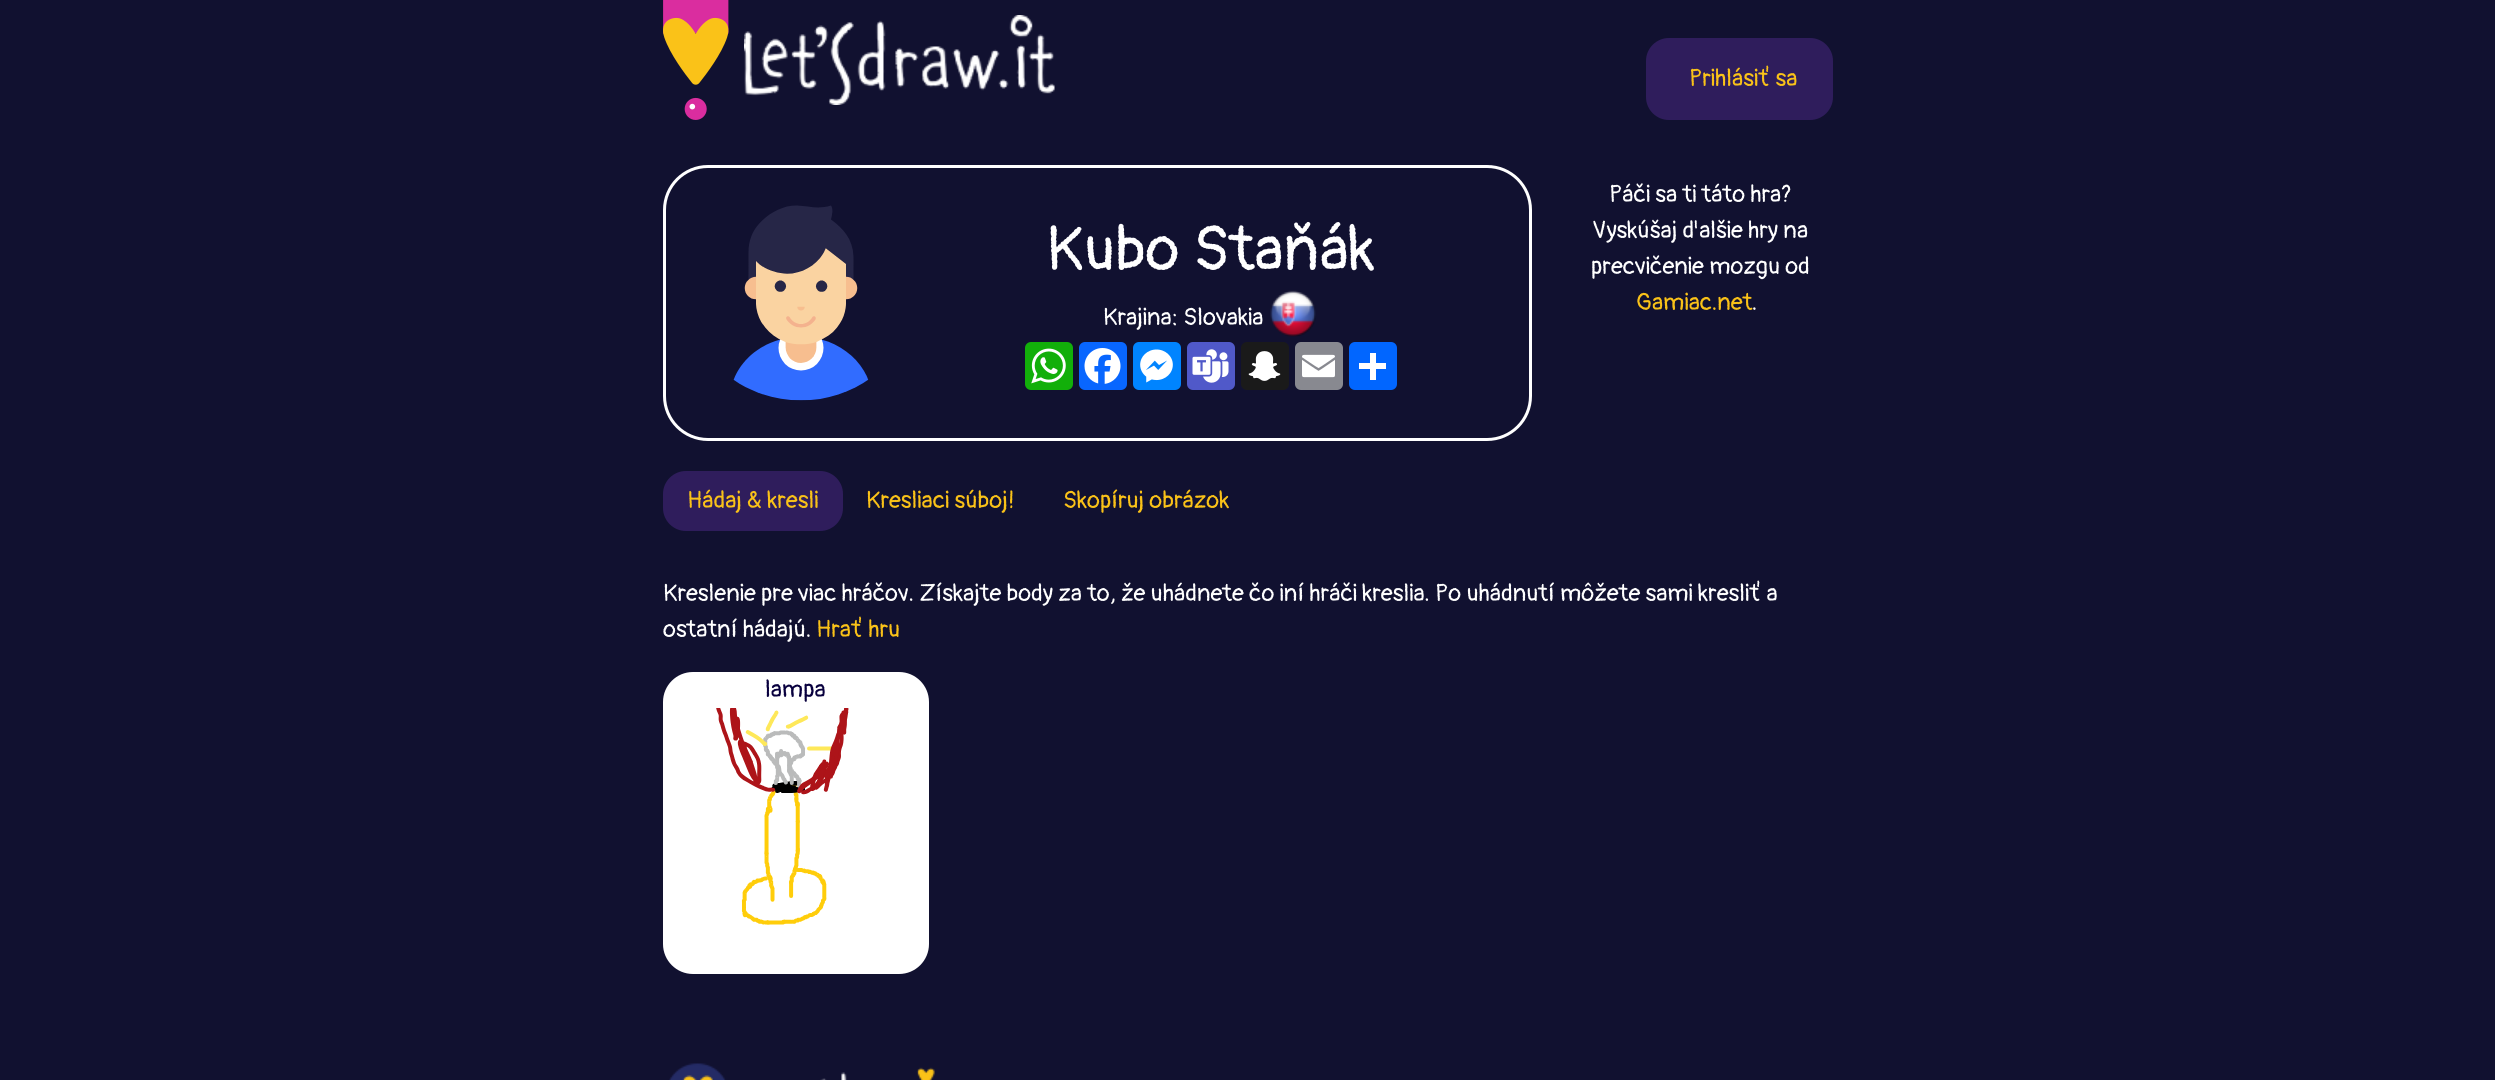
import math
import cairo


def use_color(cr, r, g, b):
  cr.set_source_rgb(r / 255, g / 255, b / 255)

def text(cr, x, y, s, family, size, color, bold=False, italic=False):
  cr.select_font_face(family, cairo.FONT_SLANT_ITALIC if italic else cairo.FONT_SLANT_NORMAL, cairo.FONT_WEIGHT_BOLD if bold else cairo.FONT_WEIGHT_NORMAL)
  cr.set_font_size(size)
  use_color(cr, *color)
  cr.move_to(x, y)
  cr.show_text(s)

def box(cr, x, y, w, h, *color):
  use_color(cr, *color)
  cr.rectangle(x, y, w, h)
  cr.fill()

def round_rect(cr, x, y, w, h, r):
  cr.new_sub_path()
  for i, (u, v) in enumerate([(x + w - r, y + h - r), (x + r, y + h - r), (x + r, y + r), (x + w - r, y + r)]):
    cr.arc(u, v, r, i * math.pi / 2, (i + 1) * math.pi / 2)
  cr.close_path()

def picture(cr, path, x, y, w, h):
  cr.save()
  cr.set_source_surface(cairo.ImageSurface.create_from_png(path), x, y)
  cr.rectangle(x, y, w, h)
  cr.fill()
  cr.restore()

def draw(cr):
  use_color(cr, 17, 17, 48)
  cr.paint()
  picture(cr, "img_01.png", 663, 0, 66, 120)
  picture(cr, "img_02.png", 744, 15, 311, 90)
  use_color(cr, 47, 29, 92)
  round_rect(cr, 1646, 38, 187, 82, 23)
  cr.fill()
  round_rect(cr, 664.5, 166.5, 866, 273, 43.5)
  use_color(cr, 255, 255, 255)
  cr.set_line_width(3)
  cr.stroke()
  picture(cr, "img_03.png", 733, 205, 136, 196)
  picture(cr, "img_04.png", 1270, 290, 46, 47)
  use_color(cr, 18, 175, 10)
  round_rect(cr, 1025, 342, 48, 48, 6)
  cr.fill()
  picture(cr, "img_05.png", 1031, 348, 35, 36)
  use_color(cr, 8, 102, 255)
  round_rect(cr, 1079, 342, 48, 48, 6)
  cr.fill()
  picture(cr, "img_06.png", 1084, 348, 37, 36)
  use_color(cr, 0, 132, 255)
  round_rect(cr, 1133, 342, 48, 48, 6)
  cr.fill()
  picture(cr, "img_07.png", 1140, 349, 33, 34)
  use_color(cr, 80, 89, 201)
  round_rect(cr, 1187, 342, 48, 48, 6)
  cr.fill()
  picture(cr, "img_08.png", 1192, 349, 37, 34)
  use_color(cr, 26, 26, 26)
  round_rect(cr, 1241, 342, 48, 48, 6)
  cr.fill()
  picture(cr, "img_09.png", 1248, 351, 33, 30)
  use_color(cr, 136, 137, 144)
  round_rect(cr, 1295, 342, 48, 48, 6)
  cr.fill()
  picture(cr, "img_10.png", 1302, 354, 33, 24)
  use_color(cr, 1, 102, 255)
  round_rect(cr, 1349, 342, 48, 48, 6)
  cr.fill()
  box(cr, 1370, 353, 6, 27, 255, 255, 255)
  box(cr, 1359, 363, 27, 6, 255, 255, 255)
  use_color(cr, 47, 29, 92)
  round_rect(cr, 663, 471, 180, 60, 23)
  cr.fill()
  use_color(cr, 255, 255, 255)
  round_rect(cr, 663, 672, 266, 302, 30)
  cr.fill()
  picture(cr, "img_11.png", 716, 708, 133, 217)
  picture(cr, "img_12.png", 669, 1063, 266, 17)
  text(cr, 1689, 86, "Prihlásiť sa", "Pangolin", 24, (250, 194, 24))
  text(cr, 1046, 270, "Kubo Staňák", "Pangolin", 62.5, (255, 255, 255))
  text(cr, 1103, 325, "Krajina: Slovakia", "Pangolin", 24, (255, 255, 255))
  text(cr, 1609, 202, "Páči sa ti táto hra?", "Pangolin", 24, (255, 255, 255))
  text(cr, 1592, 238, "Vyskúšaj ďalšie hry na", "Pangolin", 24, (255, 255, 255))
  text(cr, 1591, 274, "precvičenie mozgu od", "Pangolin", 24, (255, 255, 255))
  text(cr, 1636, 310, "Gamiac.net", "Pangolin", 24, (250, 194, 24))
  text(cr, 1752, 310, ".", "Pangolin", 24, (255, 255, 255))
  text(cr, 687, 508, "Hádaj & kresli", "Pangolin", 24, (250, 194, 24))
  text(cr, 866, 508, "Kresliaci súboj!", "Pangolin", 24, (250, 194, 24))
  text(cr, 1063, 508, "Skopíruj obrázok", "Pangolin", 24, (250, 194, 24))
  text(cr, 663, 601, "Kreslenie pre viac hráčov. Získajte body za to, že uhádnete čo iní hráči kreslia. Po uhádnutí môžete sami kresliť a", "Pangolin", 24, (255, 255, 255))
  text(cr, 663, 637, "ostatní hádajú.", "Pangolin", 24, (255, 255, 255))
  text(cr, 816, 637, "Hrať hru", "Pangolin", 24, (250, 194, 24))
  text(cr, 765, 697, "lampa", "Pangolin", 24, (8, 0, 62))


surface = cairo.ImageSurface(cairo.FORMAT_RGB24, 2495, 1080)
cr = cairo.Context(surface)
options = cairo.FontOptions()
options.set_hint_metrics(cairo.HINT_METRICS_OFF)
options.set_hint_style(cairo.HINT_STYLE_NONE)
cr.set_font_options(options)
cr.set_miter_limit(4)
draw(cr)
surface.write_to_png("out.png")
